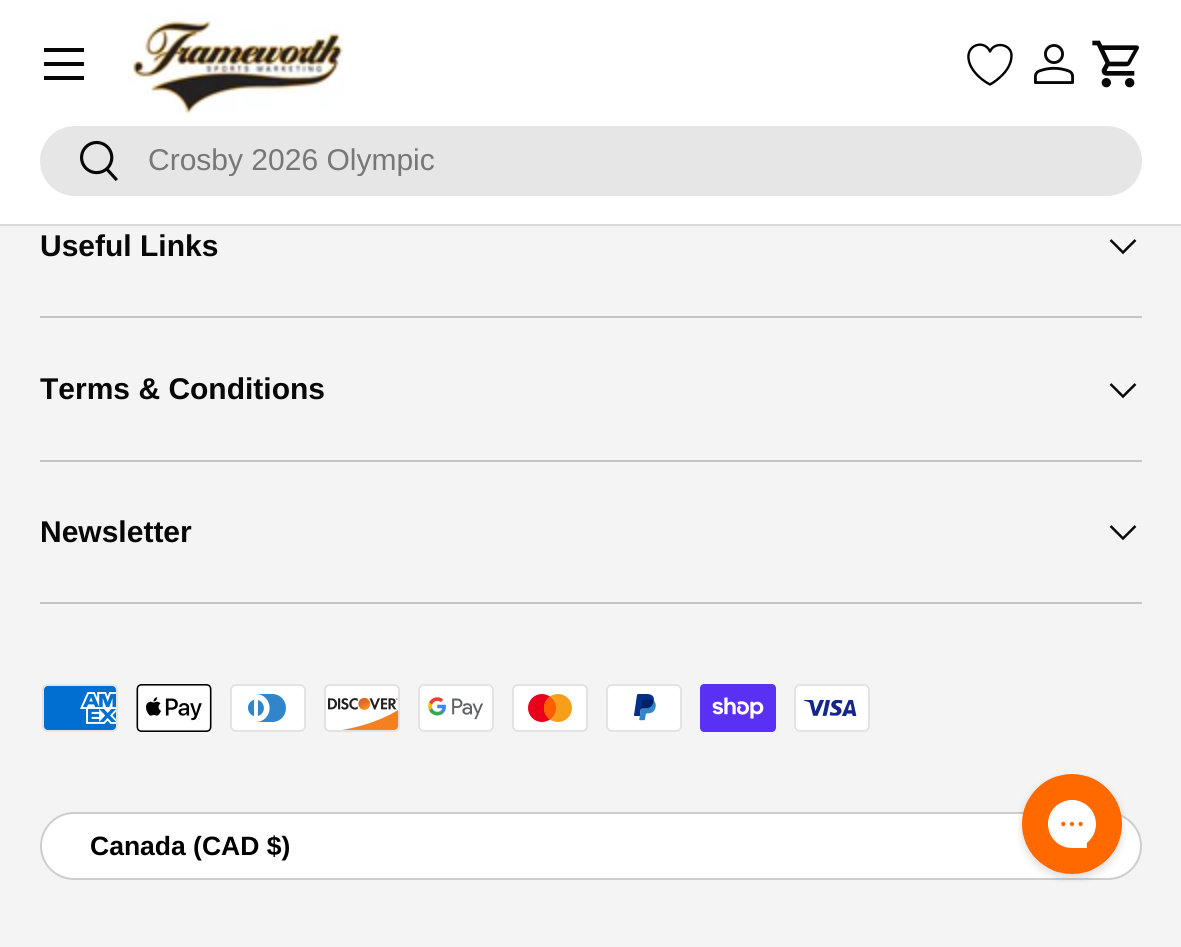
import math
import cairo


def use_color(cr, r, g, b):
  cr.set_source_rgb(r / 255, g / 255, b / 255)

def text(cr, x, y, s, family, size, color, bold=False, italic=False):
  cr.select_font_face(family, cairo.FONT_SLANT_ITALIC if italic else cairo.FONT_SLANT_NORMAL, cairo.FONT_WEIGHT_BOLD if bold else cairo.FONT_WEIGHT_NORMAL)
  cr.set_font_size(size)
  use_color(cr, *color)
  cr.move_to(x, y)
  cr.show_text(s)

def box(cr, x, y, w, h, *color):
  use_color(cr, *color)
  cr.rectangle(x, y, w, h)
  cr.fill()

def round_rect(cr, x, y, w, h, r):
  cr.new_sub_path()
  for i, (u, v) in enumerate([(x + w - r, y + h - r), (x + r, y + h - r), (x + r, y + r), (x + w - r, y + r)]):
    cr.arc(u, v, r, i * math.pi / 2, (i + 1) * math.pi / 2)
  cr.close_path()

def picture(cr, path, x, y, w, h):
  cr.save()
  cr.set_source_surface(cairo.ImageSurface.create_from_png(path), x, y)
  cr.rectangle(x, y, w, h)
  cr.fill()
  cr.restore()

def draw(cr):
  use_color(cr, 244, 244, 244)
  cr.paint()
  box(cr, 0, 0, 1181, 224, 255, 255, 255)
  box(cr, 0, 224, 1181, 2, 218, 218, 218)
  box(cr, 44, 48, 40, 4, 7, 7, 7)
  box(cr, 44, 76, 40, 4, 7, 7, 7)
  box(cr, 44, 62, 40, 4, 7, 7, 7)
  picture(cr, "img_01.png", 128, 14, 217, 100)
  cr.new_path()
  cr.move_to(1011.5, 55.5)
  cr.curve_to(1011.5, 44, 994.5, 41, 990, 51.5)
  cr.curve_to(984, 37.5, 960, 46, 971.5, 67.5)
  cr.curve_to(975.5, 74.5, 982.5, 80.5, 990, 84.5)
  cr.curve_to(990, 84.5, 1011.5, 73, 1011.5, 55.5)
  use_color(cr, 0, 0, 0)
  cr.set_line_width(2.4)
  cr.set_line_cap(cairo.LINE_CAP_ROUND)
  cr.set_line_join(cairo.LINE_JOIN_ROUND)
  cr.stroke()
  picture(cr, "img_02.png", 1034, 44, 40, 40)
  picture(cr, "img_03.png", 1092, 40, 47, 48)
  use_color(cr, 230, 230, 230)
  round_rect(cr, 40, 126, 1102, 70, 35)
  cr.fill()
  picture(cr, "img_04.png", 80, 140, 38, 41)
  box(cr, 40, 316, 1102, 2, 197, 197, 197)
  cr.new_path()
  cr.move_to(1135.5, 240)
  cr.line_to(1123, 252.5)
  cr.line_to(1110.5, 240)
  use_color(cr, 7, 7, 7)
  cr.set_line_width(2.5)
  cr.set_line_cap(cairo.LINE_CAP_BUTT)
  cr.set_line_join(cairo.LINE_JOIN_MITER)
  cr.stroke()
  box(cr, 40, 460, 1102, 2, 197, 197, 197)
  cr.new_path()
  cr.move_to(1135.5, 384)
  cr.line_to(1123, 396.5)
  cr.line_to(1110.5, 384)
  use_color(cr, 7, 7, 7)
  cr.stroke()
  box(cr, 40, 602, 1102, 2, 197, 197, 197)
  cr.new_path()
  cr.move_to(1135.5, 526)
  cr.line_to(1123, 538.5)
  cr.line_to(1110.5, 526)
  use_color(cr, 7, 7, 7)
  cr.stroke()
  picture(cr, "img_05.png", 42, 684, 76, 48)
  picture(cr, "img_06.png", 136, 684, 76, 48)
  picture(cr, "img_07.png", 230, 684, 76, 48)
  picture(cr, "img_08.png", 324, 684, 76, 48)
  picture(cr, "img_09.png", 418, 684, 76, 48)
  picture(cr, "img_10.png", 512, 684, 76, 48)
  picture(cr, "img_11.png", 606, 684, 76, 48)
  picture(cr, "img_12.png", 700, 684, 76, 48)
  picture(cr, "img_13.png", 794, 684, 76, 48)
  use_color(cr, 255, 255, 255)
  round_rect(cr, 40, 812, 1102, 68, 34)
  cr.fill()
  round_rect(cr, 41, 813, 1100, 66, 33)
  cr.set_source_rgba(0.027, 0.027, 0.027, 0.2)
  cr.set_line_width(2)
  cr.stroke()
  picture(cr, "img_14.png", 1018, 774, 108, 108)
  cr.save()
  cr.rectangle(148, 142, 886, 34)
  cr.clip()
  text(cr, 148, 170, "Crosby 2026 Olympic", "Liberation Sans", 30, (119, 119, 119))
  cr.restore()
  text(cr, 40, 256, "Useful Links", "Liberation Sans", 30, (7, 7, 7), bold=True)
  text(cr, 40, 399, "Terms & Conditions", "Liberation Sans", 30, (7, 7, 7), bold=True)
  text(cr, 40, 542, "Newsletter", "Liberation Sans", 30, (7, 7, 7), bold=True)
  text(cr, 90, 855, "Canada (CAD $)", "Liberation Sans", 26.5, (0, 0, 0), bold=True)


surface = cairo.ImageSurface(cairo.FORMAT_RGB24, 1181, 947)
cr = cairo.Context(surface)
options = cairo.FontOptions()
options.set_hint_metrics(cairo.HINT_METRICS_OFF)
options.set_hint_style(cairo.HINT_STYLE_NONE)
cr.set_font_options(options)
cr.set_miter_limit(4)
draw(cr)
surface.write_to_png("out.png")
